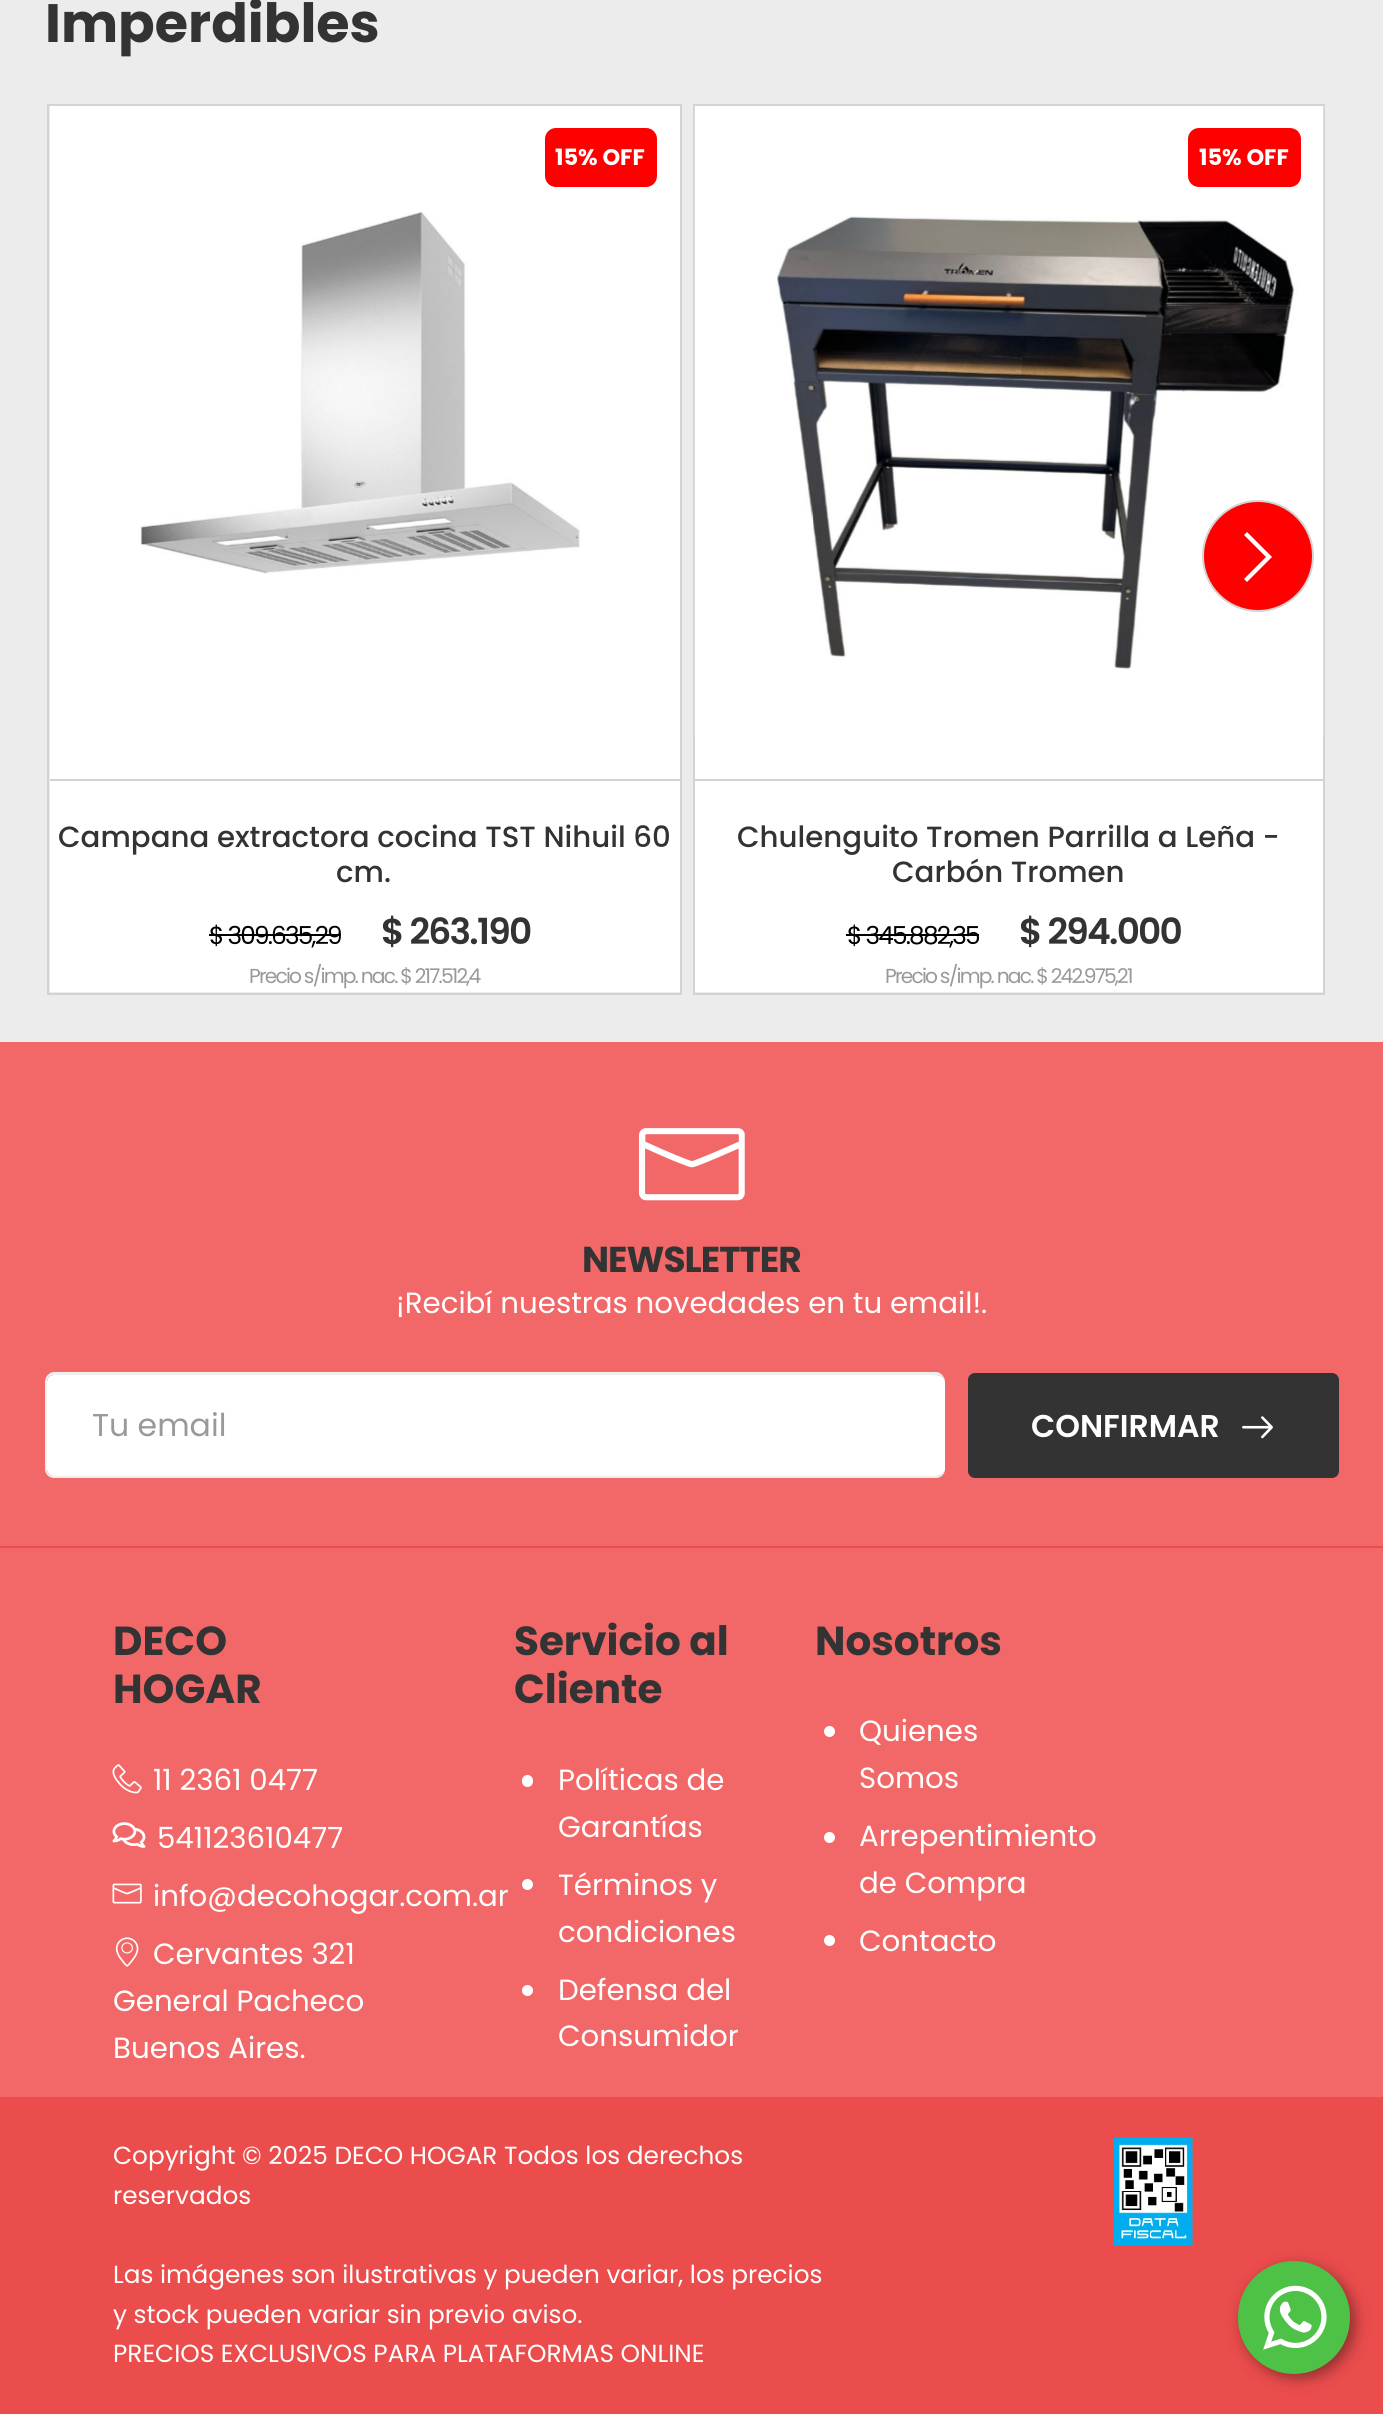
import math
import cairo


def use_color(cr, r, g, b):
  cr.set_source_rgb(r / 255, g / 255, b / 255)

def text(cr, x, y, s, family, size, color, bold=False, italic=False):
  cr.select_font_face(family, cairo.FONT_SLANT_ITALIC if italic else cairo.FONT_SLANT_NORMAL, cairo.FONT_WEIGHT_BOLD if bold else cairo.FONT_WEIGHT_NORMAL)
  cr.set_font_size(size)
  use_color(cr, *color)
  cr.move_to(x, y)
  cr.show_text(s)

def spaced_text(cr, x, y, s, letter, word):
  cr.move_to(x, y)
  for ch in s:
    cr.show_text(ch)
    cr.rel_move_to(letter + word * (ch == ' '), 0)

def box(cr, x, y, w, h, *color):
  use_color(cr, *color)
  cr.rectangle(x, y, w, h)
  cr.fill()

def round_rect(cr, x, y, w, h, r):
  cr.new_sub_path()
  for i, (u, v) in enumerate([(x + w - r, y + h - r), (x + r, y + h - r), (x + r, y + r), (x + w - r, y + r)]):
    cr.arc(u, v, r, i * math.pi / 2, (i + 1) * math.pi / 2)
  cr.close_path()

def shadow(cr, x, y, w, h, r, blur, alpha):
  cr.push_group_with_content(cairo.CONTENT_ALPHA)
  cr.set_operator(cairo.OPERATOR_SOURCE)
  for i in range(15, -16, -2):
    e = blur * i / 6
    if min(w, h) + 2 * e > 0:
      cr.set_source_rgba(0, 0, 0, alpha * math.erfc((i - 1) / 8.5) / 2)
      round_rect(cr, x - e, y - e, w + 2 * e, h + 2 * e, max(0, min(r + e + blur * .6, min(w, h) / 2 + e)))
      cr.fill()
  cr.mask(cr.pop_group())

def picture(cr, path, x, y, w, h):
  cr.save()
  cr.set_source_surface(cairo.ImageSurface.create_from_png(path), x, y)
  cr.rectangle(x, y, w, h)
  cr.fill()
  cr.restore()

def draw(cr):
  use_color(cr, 242, 104, 104)
  cr.paint()
  box(cr, 0, 0, 1383, 1042, 236, 236, 236)
  cr.rectangle(48, 105, 633, 889)
  use_color(cr, 211, 211, 211)
  cr.stroke()
  box(cr, 50, 106, 630, 673, 255, 255, 255)
  box(cr, 50, 779, 630, 2, 211, 211, 211)
  use_color(cr, 255, 0, 0)
  round_rect(cr, 545, 128, 112, 59, 11)
  cr.fill()
  picture(cr, "img_01.png", 140, 211, 440, 363)
  box(cr, 50, 781, 630, 211, 255, 255, 255)
  box(cr, 209, 934, 131, 2, 0, 0, 0)
  cr.rectangle(694, 105, 630, 889)
  use_color(cr, 211, 211, 211)
  cr.stroke()
  box(cr, 695, 106, 628, 673, 255, 255, 255)
  box(cr, 695, 779, 628, 2, 211, 211, 211)
  picture(cr, "img_02.png", 694, 106, 630, 630)
  use_color(cr, 255, 0, 0)
  round_rect(cr, 1188, 128, 113, 59, 11)
  cr.fill()
  box(cr, 695, 781, 628, 211, 255, 255, 255)
  box(cr, 846, 934, 133, 2, 0, 0, 0)
  use_color(cr, 255, 0, 0)
  cr.arc(1258, 556, 55, 0, 2 * math.pi)
  cr.fill_preserve()
  use_color(cr, 211, 211, 211)
  cr.stroke()
  use_color(cr, 255, 255, 255)
  cr.new_path()
  cr.move_to(1247, 532)
  cr.line_to(1244, 535)
  cr.line_to(1266, 557)
  cr.line_to(1244, 579)
  cr.line_to(1247, 582)
  cr.line_to(1272, 557)
  cr.close_path()
  cr.fill()
  box(cr, 0, 1546, 1383, 2, 235, 76, 76)
  picture(cr, "img_03.png", 639, 1128, 106, 73)
  use_color(cr, 255, 255, 255)
  cr.new_path()
  cr.move_to(54, 1375)
  cr.line_to(936, 1375)
  cr.curve_to(941, 1375, 945, 1378, 945, 1382)
  cr.line_to(945, 1469)
  cr.curve_to(945, 1473, 941, 1476, 936, 1476)
  cr.line_to(54, 1476)
  cr.curve_to(50, 1476, 47, 1473, 47, 1469)
  cr.line_to(47, 1382)
  cr.curve_to(47, 1378, 50, 1375, 54, 1375)
  cr.close_path()
  cr.fill()
  use_color(cr, 238, 238, 238)
  cr.set_fill_rule(cairo.FILL_RULE_EVEN_ODD)
  cr.new_path()
  cr.move_to(54, 1372)
  cr.line_to(936, 1372)
  cr.curve_to(941, 1372, 945, 1377, 945, 1382)
  cr.line_to(945, 1469)
  cr.curve_to(945, 1474, 941, 1478, 936, 1478)
  cr.line_to(54, 1478)
  cr.curve_to(49, 1478, 45, 1474, 45, 1469)
  cr.line_to(45, 1382)
  cr.curve_to(45, 1377, 49, 1372, 54, 1372)
  cr.close_path()
  cr.move_to(54, 1375)
  cr.line_to(936, 1375)
  cr.curve_to(941, 1375, 945, 1378, 945, 1382)
  cr.line_to(945, 1469)
  cr.curve_to(945, 1473, 941, 1476, 936, 1476)
  cr.line_to(54, 1476)
  cr.curve_to(50, 1476, 47, 1473, 47, 1469)
  cr.line_to(47, 1382)
  cr.curve_to(47, 1378, 50, 1375, 54, 1375)
  cr.close_path()
  cr.fill()
  use_color(cr, 51, 51, 51)
  round_rect(cr, 970.5, 1375.5, 366, 100, 4.5)
  cr.fill_preserve()
  cr.set_line_width(5)
  cr.stroke()
  picture(cr, "img_04.png", 1242, 1416, 31, 23)
  picture(cr, "img_05.png", 112, 1764, 30, 30)
  picture(cr, "img_06.png", 112, 1822, 34, 26)
  picture(cr, "img_07.png", 112, 1883, 30, 21)
  picture(cr, "img_08.png", 115, 1937, 24, 30)
  use_color(cr, 255, 255, 255)
  round_rect(cr, 522, 1775, 11, 12, 5.5)
  cr.fill()
  cr.arc(527.5, 1884.5, 5.5, 0, 2 * math.pi)
  cr.fill()
  cr.arc(527.5, 1990.5, 5.5, 0, 2 * math.pi)
  cr.fill()
  cr.arc(829.5, 1731.5, 5.5, 0, 2 * math.pi)
  cr.fill()
  cr.arc(829.5, 1837.5, 5.5, 0, 2 * math.pi)
  cr.fill()
  cr.arc(829.5, 1940.5, 5.5, 0, 2 * math.pi)
  cr.fill()
  box(cr, 0, 2097, 1383, 317, 235, 76, 76)
  picture(cr, "img_09.png", 1113, 2137, 80, 109)
  use_color(cr, 0, 0, 0)
  shadow(cr, 1242, 2266, 113, 112, 56, 7, 0.4)
  use_color(cr, 77, 194, 71)
  round_rect(cr, 1238, 2261, 112, 113, 56)
  cr.fill()
  picture(cr, "img_10.png", 1263, 2285, 64, 65)
  text(cr, 45, 42, "Imperdibles", "Poppins", 54, (51, 51, 51), bold=True)
  text(cr, 555, 165, "15% OFF", "Poppins", 22.5, (255, 255, 255), bold=True)
  text(cr, 58, 847, "Campana extractora cocina TST Nihuil 60", "Poppins Medium", 29.25, (51, 51, 51))
  text(cr, 336, 882, "cm.", "Poppins Medium", 29.25, (51, 51, 51))
  cr.select_font_face("Poppins")
  cr.set_font_size(24.75)
  use_color(cr, 0, 0, 0)
  spaced_text(cr, 209, 944, "$ 309.635,29", -1.8, 0)
  cr.select_font_face("Poppins SemiBold")
  cr.set_font_size(36)
  use_color(cr, 51, 51, 51)
  spaced_text(cr, 381, 944, "$ 263.190", -1.8, 0)
  cr.select_font_face("Poppins")
  cr.set_font_size(20.25)
  use_color(cr, 153, 153, 153)
  spaced_text(cr, 249, 983, "Precio s/imp. nac. $ 217.512,4", -1.8, 0)
  text(cr, 1199, 165, "15% OFF", "Poppins", 22.5, (255, 255, 255), bold=True)
  text(cr, 737, 847, "Chulenguito Tromen Parrilla a Leña -", "Poppins Medium", 29.25, (51, 51, 51))
  text(cr, 892, 882, "Carbón Tromen", "Poppins Medium", 29.25, (51, 51, 51))
  cr.select_font_face("Poppins")
  cr.set_font_size(24.75)
  use_color(cr, 0, 0, 0)
  spaced_text(cr, 847, 944, "$ 345.882,35", -1.8, 0)
  cr.select_font_face("Poppins SemiBold")
  cr.set_font_size(36)
  use_color(cr, 51, 51, 51)
  spaced_text(cr, 1019, 944, "$ 294.000", -1.8, 0)
  cr.select_font_face("Poppins")
  cr.set_font_size(20.25)
  use_color(cr, 153, 153, 153)
  spaced_text(cr, 885, 983, "Precio s/imp. nac. $ 242.975,21", -1.8, 0)
  cr.select_font_face("Poppins", cairo.FONT_SLANT_NORMAL, cairo.FONT_WEIGHT_BOLD)
  cr.set_font_size(36)
  use_color(cr, 51, 51, 51)
  spaced_text(cr, 582, 1272, "NEWSLETTER", -1, 0)
  text(cr, 396, 1313, "¡Recibí nuestras novedades en tu email!.", "Poppins", 29.25, (255, 255, 255))
  text(cr, 92, 1436, "Tu email", "Poppins", 31.5, (153, 153, 153))
  text(cr, 1031, 1437, "CONFIRMAR", "Poppins SemiBold", 31.5, (255, 255, 255))
  text(cr, 113, 1655, "DECO", "Poppins", 40.5, (51, 51, 51), bold=True)
  text(cr, 113, 1703, "HOGAR", "Poppins", 40.5, (51, 51, 51), bold=True)
  text(cr, 153, 1790, "11 2361 0477", "Poppins", 29.25, (255, 255, 255))
  text(cr, 157, 1848, "541123610477", "Poppins", 29.25, (255, 255, 255))
  text(cr, 153, 1906, "info@decohogar.com.ar", "Poppins", 29.25, (255, 255, 255))
  text(cr, 153, 1964, "Cervantes 321", "Poppins", 29.25, (255, 255, 255))
  text(cr, 113, 2011, "General Pacheco", "Poppins", 29.25, (255, 255, 255))
  text(cr, 113, 2058, "Buenos Aires.", "Poppins", 29.25, (255, 255, 255))
  text(cr, 514, 1655, "Servicio al", "Poppins", 40.5, (51, 51, 51), bold=True)
  text(cr, 514, 1703, "Cliente", "Poppins", 40.5, (51, 51, 51), bold=True)
  text(cr, 558, 1790, "Políticas de", "Poppins", 29.25, (255, 255, 255))
  text(cr, 558, 1837, "Garantías", "Poppins", 29.25, (255, 255, 255))
  text(cr, 558, 1895, "Términos y", "Poppins", 29.25, (255, 255, 255))
  text(cr, 558, 1942, "condiciones", "Poppins", 29.25, (255, 255, 255))
  text(cr, 558, 2000, "Defensa del", "Poppins", 29.25, (255, 255, 255))
  text(cr, 558, 2046, "Consumidor", "Poppins", 29.25, (255, 255, 255))
  text(cr, 815, 1655, "Nosotros", "Poppins", 40.5, (51, 51, 51), bold=True)
  text(cr, 859, 1741, "Quienes", "Poppins", 29.25, (255, 255, 255))
  text(cr, 859, 1788, "Somos", "Poppins", 29.25, (255, 255, 255))
  text(cr, 859, 1846, "Arrepentimiento", "Poppins", 29.25, (255, 255, 255))
  text(cr, 859, 1893, "de Compra", "Poppins", 29.25, (255, 255, 255))
  text(cr, 859, 1951, "Contacto", "Poppins", 29.25, (255, 255, 255))
  text(cr, 113, 2164, "Copyright © 2025 DECO HOGAR Todos los derechos", "Poppins", 24.75, (255, 255, 255))
  text(cr, 113, 2204, "reservados", "Poppins", 24.75, (255, 255, 255))
  text(cr, 113, 2283, "Las imágenes son ilustrativas y pueden variar, los precios", "Poppins", 24.75, (255, 255, 255))
  text(cr, 113, 2323, "y stock pueden variar sin previo aviso.", "Poppins", 24.75, (255, 255, 255))
  text(cr, 113, 2362, "PRECIOS EXCLUSIVOS PARA PLATAFORMAS ONLINE", "Poppins", 24.75, (255, 255, 255))


surface = cairo.ImageSurface(cairo.FORMAT_RGB24, 1383, 2414)
cr = cairo.Context(surface)
options = cairo.FontOptions()
options.set_hint_metrics(cairo.HINT_METRICS_OFF)
options.set_hint_style(cairo.HINT_STYLE_NONE)
cr.set_font_options(options)
cr.set_miter_limit(4)
draw(cr)
surface.write_to_png("out.png")
